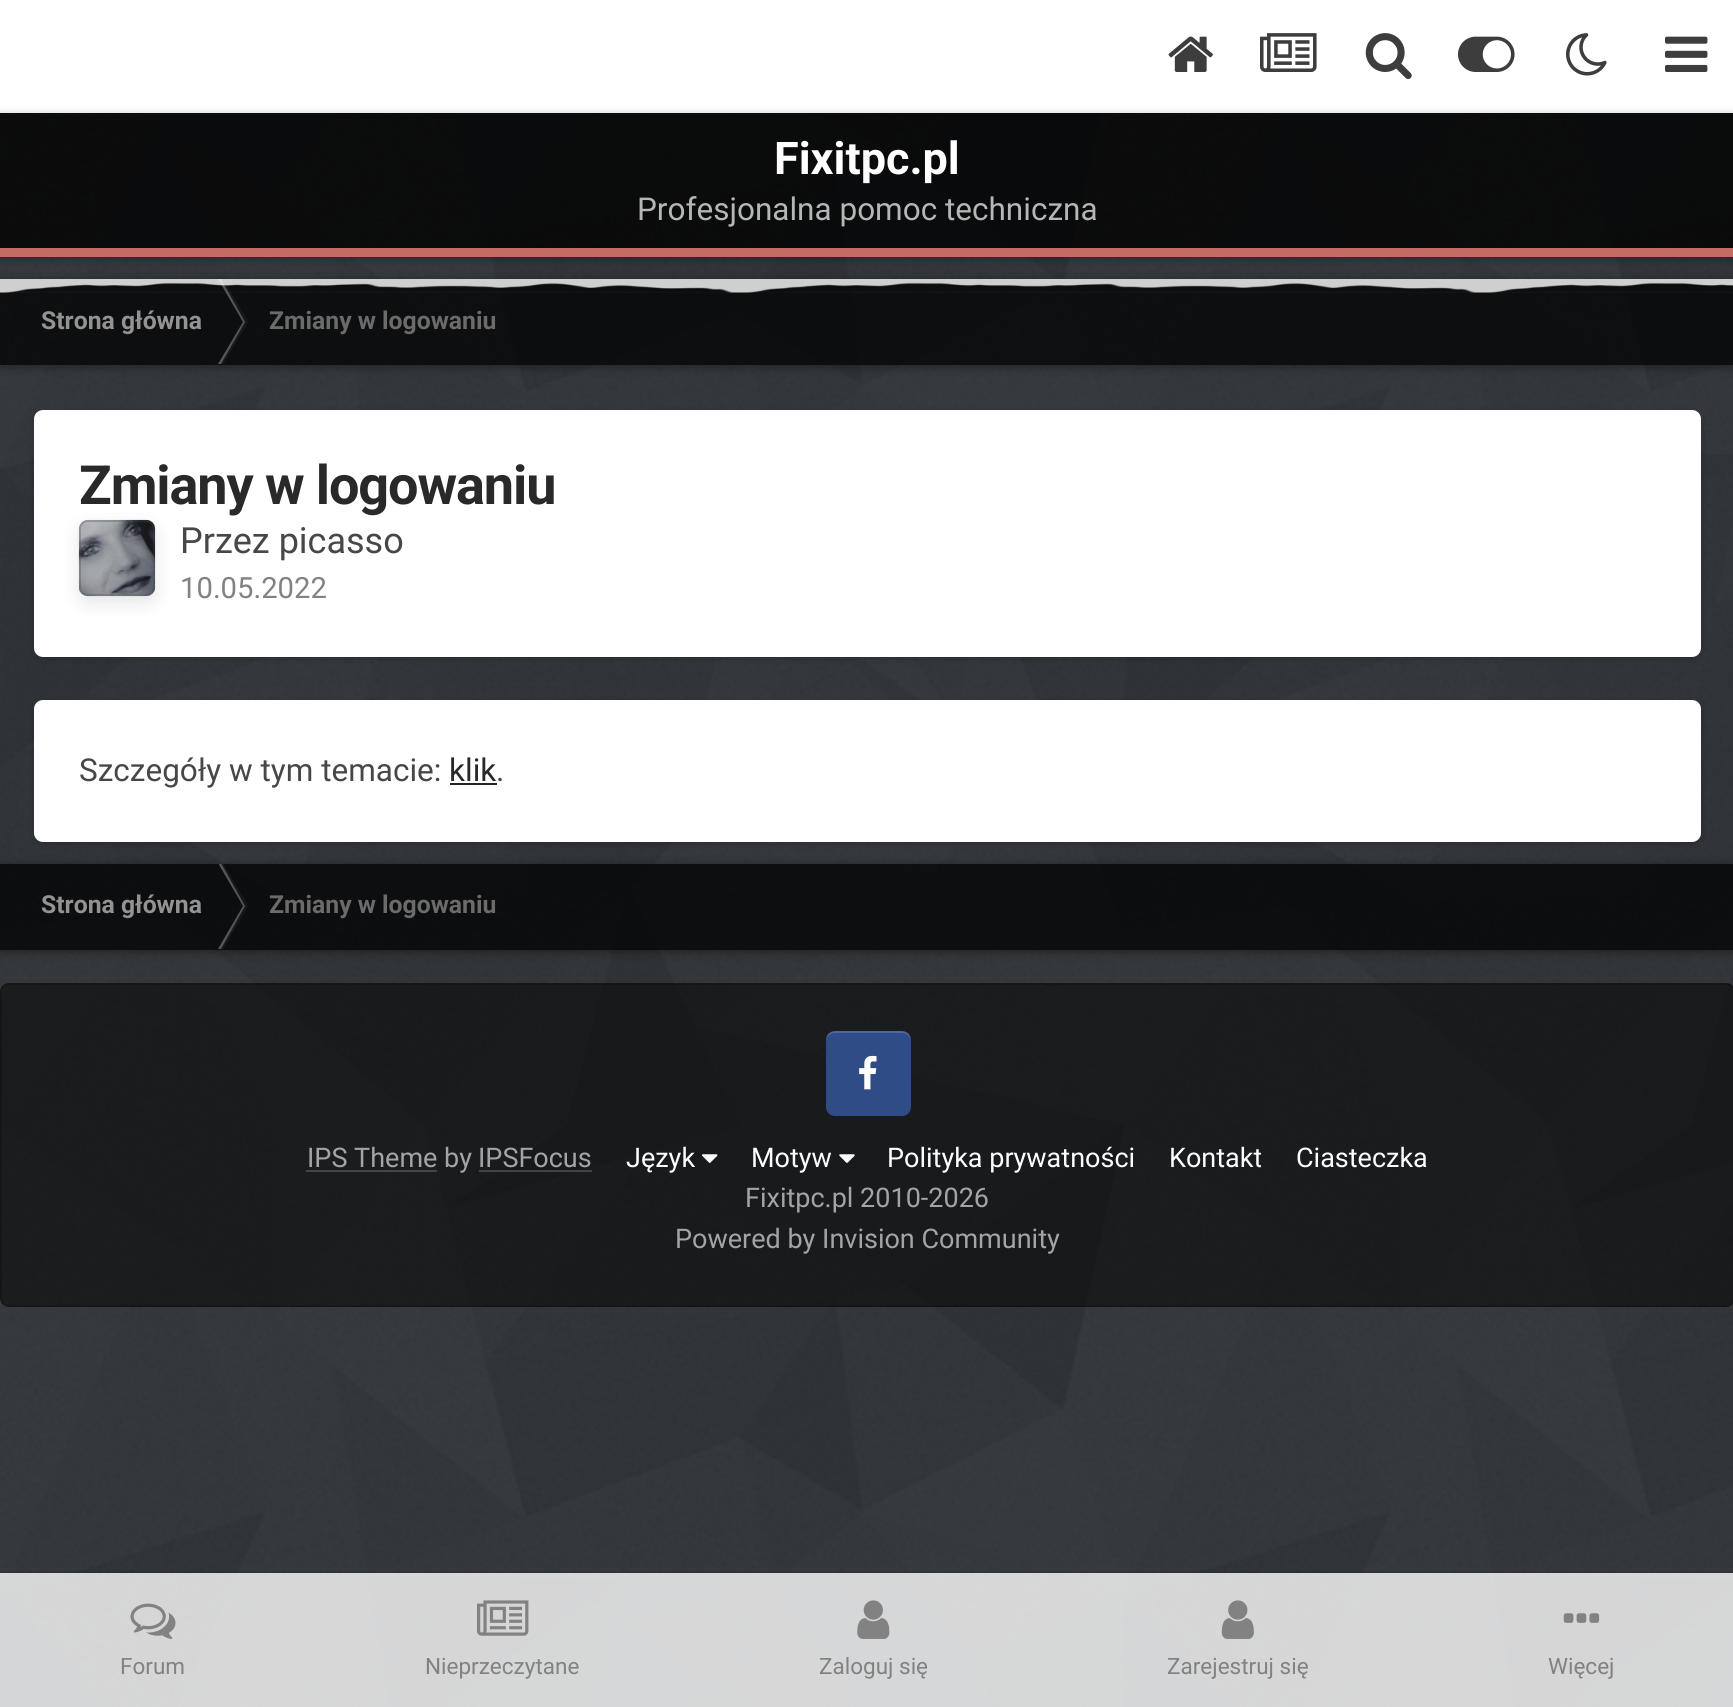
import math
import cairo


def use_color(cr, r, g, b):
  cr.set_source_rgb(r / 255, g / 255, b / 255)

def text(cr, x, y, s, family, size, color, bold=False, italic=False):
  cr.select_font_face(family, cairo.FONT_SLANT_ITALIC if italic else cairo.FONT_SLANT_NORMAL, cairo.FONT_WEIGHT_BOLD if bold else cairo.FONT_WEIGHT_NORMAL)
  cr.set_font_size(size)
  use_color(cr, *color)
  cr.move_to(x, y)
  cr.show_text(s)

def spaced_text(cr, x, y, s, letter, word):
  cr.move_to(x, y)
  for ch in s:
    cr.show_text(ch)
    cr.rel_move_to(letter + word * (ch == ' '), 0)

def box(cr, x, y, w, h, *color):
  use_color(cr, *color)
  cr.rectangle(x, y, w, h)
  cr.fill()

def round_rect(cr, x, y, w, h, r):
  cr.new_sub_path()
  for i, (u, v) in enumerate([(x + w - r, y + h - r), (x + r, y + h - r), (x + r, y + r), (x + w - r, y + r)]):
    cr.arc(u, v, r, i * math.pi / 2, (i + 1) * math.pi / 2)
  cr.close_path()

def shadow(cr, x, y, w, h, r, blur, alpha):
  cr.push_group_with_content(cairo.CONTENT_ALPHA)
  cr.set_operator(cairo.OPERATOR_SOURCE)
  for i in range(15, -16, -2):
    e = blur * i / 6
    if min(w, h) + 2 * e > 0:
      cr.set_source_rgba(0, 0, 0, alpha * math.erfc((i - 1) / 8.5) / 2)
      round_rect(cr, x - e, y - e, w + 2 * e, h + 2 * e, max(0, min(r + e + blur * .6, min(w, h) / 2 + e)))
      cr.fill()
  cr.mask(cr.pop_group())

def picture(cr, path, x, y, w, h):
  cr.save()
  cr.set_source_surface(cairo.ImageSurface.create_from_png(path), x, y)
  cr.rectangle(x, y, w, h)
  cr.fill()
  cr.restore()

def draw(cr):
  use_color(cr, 47, 51, 55)
  cr.paint()
  box(cr, 0, 0, 1733, 113, 255, 255, 255)
  picture(cr, "img_01.png", 1168, 36, 45, 36)
  picture(cr, "img_02.png", 1260, 33, 57, 39)
  picture(cr, "img_03.png", 1365, 33, 47, 47)
  picture(cr, "img_04.png", 1458, 36, 57, 36)
  picture(cr, "img_05.png", 1566, 33, 41, 43)
  picture(cr, "img_06.png", 1665, 36, 43, 36)
  picture(cr, "img_07.png", 0, 113, 1733, 1594)
  cr.save()
  cr.set_fill_rule(cairo.FILL_RULE_EVEN_ODD)
  cr.new_path()
  cr.move_to(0, 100)
  cr.line_to(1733, 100)
  cr.line_to(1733, 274)
  cr.line_to(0, 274)
  cr.close_path()
  cr.move_to(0, 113)
  cr.line_to(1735, 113)
  cr.line_to(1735, 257)
  cr.line_to(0, 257)
  cr.close_path()
  cr.clip()
  use_color(cr, 0, 0, 0)
  shadow(cr, 0, 115, 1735, 144, 0, 4.5, 0.3)
  cr.restore()
  cr.set_source_rgba(0, 0, 0, 0.8)
  cr.rectangle(0, 113, 1733, 135)
  cr.fill()
  box(cr, 0, 248, 1733, 9, 196, 108, 99)
  cr.save()
  cr.set_fill_rule(cairo.FILL_RULE_EVEN_ODD)
  cr.new_path()
  cr.move_to(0, 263)
  cr.line_to(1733, 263)
  cr.line_to(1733, 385)
  cr.line_to(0, 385)
  cr.close_path()
  cr.move_to(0, 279)
  cr.line_to(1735, 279)
  cr.line_to(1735, 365)
  cr.line_to(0, 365)
  cr.close_path()
  cr.clip()
  use_color(cr, 0, 0, 0)
  shadow(cr, 0, 281, 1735, 86, 0, 5.5, 0.4)
  cr.restore()
  cr.set_source_rgba(0, 0, 0, 0.75)
  cr.rectangle(0, 279, 1733, 86)
  cr.fill()
  use_color(cr, 86, 86, 87)
  cr.new_path()
  cr.move_to(218, 279)
  cr.line_to(221, 279)
  cr.line_to(245, 322)
  cr.line_to(243, 322)
  cr.close_path()
  cr.fill()
  cr.set_source_rgba(0.278, 0.278, 0.278, 0.2)
  cr.new_path()
  cr.move_to(221, 279)
  cr.line_to(223, 279)
  cr.line_to(248, 322)
  cr.line_to(245, 322)
  cr.close_path()
  cr.fill()
  picture(cr, "img_08.png", 0, 279, 1733, 14)
  use_color(cr, 86, 86, 87)
  cr.new_path()
  cr.move_to(218, 364)
  cr.line_to(221, 364)
  cr.line_to(245, 322)
  cr.line_to(243, 322)
  cr.close_path()
  cr.fill()
  cr.set_source_rgba(0.278, 0.278, 0.278, 0.2)
  cr.new_path()
  cr.move_to(221, 364)
  cr.line_to(223, 364)
  cr.line_to(248, 322)
  cr.line_to(245, 322)
  cr.close_path()
  cr.fill()
  use_color(cr, 0, 0, 0)
  shadow(cr, 34, 412, 1667, 247, 9, 3.5, 0.2)
  use_color(cr, 255, 255, 255)
  round_rect(cr, 34, 410, 1667, 247, 9)
  cr.fill()
  picture(cr, "img_09.png", 78, 519, 78, 78)
  cr.save()
  cr.set_fill_rule(cairo.FILL_RULE_EVEN_ODD)
  cr.new_path()
  cr.move_to(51, 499)
  cr.line_to(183, 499)
  cr.line_to(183, 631)
  cr.line_to(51, 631)
  cr.close_path()
  cr.move_to(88, 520)
  cr.line_to(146, 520)
  cr.curve_to(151, 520, 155, 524, 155, 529)
  cr.line_to(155, 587)
  cr.curve_to(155, 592, 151, 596, 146, 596)
  cr.line_to(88, 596)
  cr.curve_to(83, 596, 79, 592, 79, 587)
  cr.line_to(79, 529)
  cr.curve_to(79, 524, 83, 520, 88, 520)
  cr.close_path()
  cr.clip()
  use_color(cr, 0, 0, 0)
  shadow(cr, 79, 527, 76, 76, 9, 9, 0.1)
  cr.restore()
  round_rect(cr, 80, 521, 74, 74, 8)
  cr.set_source_rgba(0.278, 0.278, 0.278, 0.3)
  cr.stroke()
  use_color(cr, 0, 0, 0)
  shadow(cr, 34, 702, 1667, 142, 9, 3.5, 0.2)
  use_color(cr, 255, 255, 255)
  round_rect(cr, 34, 700, 1667, 142, 9)
  cr.fill()
  box(cr, 450, 783, 47, 2, 36, 36, 36)
  cr.save()
  cr.set_fill_rule(cairo.FILL_RULE_EVEN_ODD)
  cr.new_path()
  cr.move_to(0, 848)
  cr.line_to(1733, 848)
  cr.line_to(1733, 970)
  cr.line_to(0, 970)
  cr.close_path()
  cr.move_to(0, 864)
  cr.line_to(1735, 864)
  cr.line_to(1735, 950)
  cr.line_to(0, 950)
  cr.close_path()
  cr.clip()
  use_color(cr, 0, 0, 0)
  shadow(cr, 0, 866, 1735, 86, 0, 5.5, 0.4)
  cr.restore()
  cr.set_source_rgba(0, 0, 0, 0.75)
  cr.rectangle(0, 864, 1733, 86)
  cr.fill()
  cr.save()
  cr.rectangle(0, 864, 1685, 86)
  cr.clip()
  use_color(cr, 85, 86, 86)
  cr.new_path()
  cr.move_to(218, 863)
  cr.line_to(221, 863)
  cr.line_to(245, 906)
  cr.line_to(243, 906)
  cr.close_path()
  cr.fill()
  cr.restore()
  cr.set_source_rgba(0.278, 0.278, 0.278, 0.2)
  cr.new_path()
  cr.move_to(221, 863)
  cr.line_to(223, 863)
  cr.line_to(248, 906)
  cr.line_to(245, 906)
  cr.close_path()
  cr.fill()
  use_color(cr, 85, 86, 87)
  cr.new_path()
  cr.move_to(218, 949)
  cr.line_to(221, 949)
  cr.line_to(245, 906)
  cr.line_to(243, 906)
  cr.close_path()
  cr.fill()
  cr.set_source_rgba(0.278, 0.278, 0.278, 0.2)
  cr.new_path()
  cr.move_to(221, 949)
  cr.line_to(223, 949)
  cr.line_to(248, 906)
  cr.line_to(245, 906)
  cr.close_path()
  cr.fill()
  cr.set_source_rgba(0, 0, 0, 0.5)
  round_rect(cr, 0, 983, 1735, 324, 9)
  cr.fill()
  round_rect(cr, 1, 984, 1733, 322, 8)
  cr.set_source_rgba(0, 0, 0, 0.2)
  cr.stroke()
  use_color(cr, 48, 76, 135)
  round_rect(cr, 826, 1031, 85, 85, 9)
  cr.fill()
  cr.set_source_rgba(1, 1, 1, 0.15)
  cr.new_path()
  cr.move_to(835, 1033)
  cr.curve_to(830, 1033, 826, 1037, 826, 1042)
  cr.curve_to(826, 1029, 836, 1031, 846, 1031)
  cr.line_to(891, 1031)
  cr.curve_to(901, 1031, 911, 1029, 911, 1042)
  cr.curve_to(911, 1037, 907, 1033, 902, 1033)
  cr.close_path()
  cr.fill()
  picture(cr, "img_10.png", 859, 1055, 18, 35)
  box(cr, 306, 1170, 131, 2, 68, 69, 71)
  box(cr, 479, 1170, 113, 2, 66, 67, 69)
  picture(cr, "img_11.png", 702, 1154, 16, 9)
  picture(cr, "img_12.png", 839, 1154, 16, 9)
  cr.set_source_rgba(0, 0, 0, 0.1)
  cr.new_path()
  cr.move_to(0, 1571)
  cr.line_to(0, 1573)
  cr.line_to(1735, 1573)
  cr.line_to(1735, 1706)
  cr.line_to(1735, 1571)
  cr.close_path()
  cr.fill()
  cr.set_source_rgba(1, 1, 1, 0.8)
  cr.rectangle(0, 1573, 1733, 134)
  cr.fill()
  picture(cr, "img_13.png", 130, 1603, 46, 36)
  picture(cr, "img_14.png", 477, 1600, 52, 36)
  picture(cr, "img_15.png", 857, 1600, 33, 39)
  picture(cr, "img_16.png", 1221, 1600, 33, 39)
  picture(cr, "img_17.png", 1563, 1613, 37, 10)
  text(cr, 774, 174, "Fixitpc.pl", "Roboto", 45, (255, 255, 255), bold=True)
  text(cr, 637, 220, "Profesjonalna pomoc techniczna", "Roboto", 31.5, (181, 182, 182))
  text(cr, 41, 329, "Strona główna", "Roboto", 24.75, (147, 147, 147), bold=True)
  text(cr, 269, 329, "Zmiany w logowaniu", "Roboto", 24.75, (107, 107, 107), bold=True)
  cr.set_font_size(54)
  use_color(cr, 41, 41, 41)
  spaced_text(cr, 79, 504, "Zmiany w logowaniu", -1.1, 0)
  text(cr, 180, 553, "Przez picasso", "Roboto", 36, (71, 71, 71))
  text(cr, 180, 598, "10.05.2022", "Roboto", 29.25, (130, 130, 130))
  text(cr, 79, 781, "Szczegóły w tym temacie:", "Roboto", 31.5, (71, 71, 71))
  text(cr, 449, 781, "klik", "Roboto", 31.5, (41, 41, 41))
  text(cr, 496, 781, ".", "Roboto", 31.5, (71, 71, 71))
  text(cr, 41, 913, "Strona główna", "Roboto", 24.75, (147, 147, 147), bold=True)
  text(cr, 269, 913, "Zmiany w logowaniu", "Roboto", 24.75, (107, 107, 107), bold=True)
  text(cr, 307, 1167, "IPS Theme", "Roboto", 27, (164, 164, 165))
  text(cr, 444, 1167, "by", "Roboto", 27, (164, 164, 165))
  text(cr, 478, 1167, "IPSFocus", "Roboto", 27, (164, 164, 165))
  text(cr, 626, 1167, "Język", "Roboto", 27, (255, 255, 255))
  text(cr, 751, 1167, "Motyw", "Roboto", 27, (255, 255, 255))
  text(cr, 887, 1167, "Polityka prywatności", "Roboto", 27, (255, 255, 255))
  text(cr, 1169, 1167, "Kontakt", "Roboto", 27, (255, 255, 255))
  text(cr, 1296, 1167, "Ciasteczka", "Roboto", 27, (255, 255, 255))
  text(cr, 745, 1207, "Fixitpc.pl 2010-2026", "Roboto", 27, (164, 164, 165))
  text(cr, 675, 1248, "Powered by Invision Community", "Roboto", 27, (164, 164, 165))
  text(cr, 120, 1674, "Forum", "Roboto", 22.5, (130, 130, 130))
  text(cr, 425, 1674, "Nieprzeczytane", "Roboto", 22.5, (130, 130, 130))
  text(cr, 819, 1674, "Zaloguj się", "Roboto", 22.5, (130, 130, 130))
  text(cr, 1167, 1674, "Zarejestruj się", "Roboto", 22.5, (130, 130, 130))
  text(cr, 1548, 1674, "Więcej", "Roboto", 22.5, (130, 130, 130))


surface = cairo.ImageSurface(cairo.FORMAT_RGB24, 1733, 1707)
cr = cairo.Context(surface)
options = cairo.FontOptions()
options.set_hint_metrics(cairo.HINT_METRICS_OFF)
options.set_hint_style(cairo.HINT_STYLE_NONE)
cr.set_font_options(options)
cr.set_miter_limit(4)
draw(cr)
surface.write_to_png("out.png")
